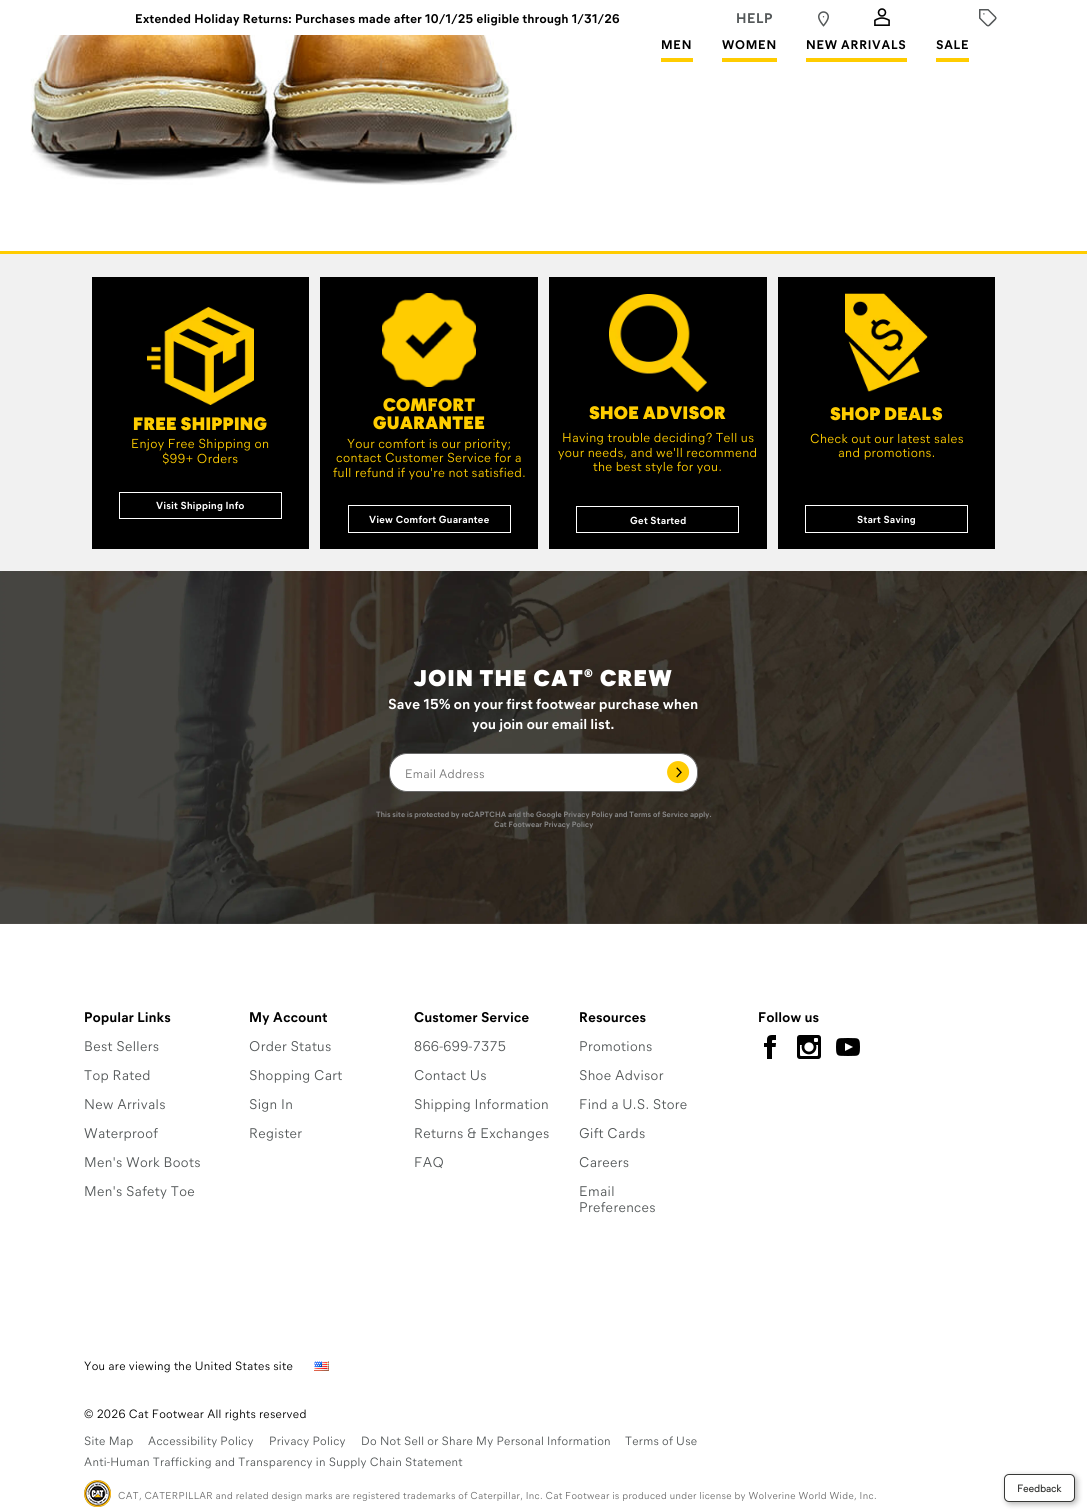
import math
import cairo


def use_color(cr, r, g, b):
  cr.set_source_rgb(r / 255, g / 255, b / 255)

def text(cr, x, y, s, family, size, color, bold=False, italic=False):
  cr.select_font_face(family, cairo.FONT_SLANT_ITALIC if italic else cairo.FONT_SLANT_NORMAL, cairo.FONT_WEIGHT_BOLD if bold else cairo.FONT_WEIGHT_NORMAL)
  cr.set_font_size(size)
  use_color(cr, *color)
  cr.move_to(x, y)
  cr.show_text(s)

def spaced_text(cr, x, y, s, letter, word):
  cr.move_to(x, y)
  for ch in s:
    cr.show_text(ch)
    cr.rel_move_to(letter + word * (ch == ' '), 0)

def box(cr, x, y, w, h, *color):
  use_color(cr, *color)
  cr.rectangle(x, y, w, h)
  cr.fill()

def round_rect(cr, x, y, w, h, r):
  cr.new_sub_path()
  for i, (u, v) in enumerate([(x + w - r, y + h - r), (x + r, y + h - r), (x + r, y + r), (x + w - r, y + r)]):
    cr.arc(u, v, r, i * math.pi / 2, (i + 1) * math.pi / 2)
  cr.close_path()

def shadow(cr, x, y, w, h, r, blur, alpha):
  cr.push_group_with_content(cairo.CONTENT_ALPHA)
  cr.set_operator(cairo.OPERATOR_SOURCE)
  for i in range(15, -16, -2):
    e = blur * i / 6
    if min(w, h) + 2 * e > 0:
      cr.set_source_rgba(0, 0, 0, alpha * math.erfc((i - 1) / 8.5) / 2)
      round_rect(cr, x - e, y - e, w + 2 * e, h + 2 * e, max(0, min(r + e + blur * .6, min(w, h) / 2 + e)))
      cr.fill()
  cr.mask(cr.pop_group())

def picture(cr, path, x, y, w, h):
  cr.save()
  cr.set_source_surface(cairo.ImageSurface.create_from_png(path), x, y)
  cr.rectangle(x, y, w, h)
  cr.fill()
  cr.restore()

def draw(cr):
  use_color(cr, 255, 255, 255)
  cr.paint()
  picture(cr, "img_01.png", 818, 11, 11, 16)
  picture(cr, "img_02.png", 874, 8, 16, 18)
  picture(cr, "img_03.png", 979, 9, 18, 18)
  picture(cr, "img_04.png", 30, 35, 487, 150)
  box(cr, 661, 58, 32, 4, 255, 204, 0)
  box(cr, 722, 58, 55, 4, 255, 204, 0)
  box(cr, 806, 58, 101, 4, 255, 204, 0)
  box(cr, 936, 58, 33, 4, 255, 204, 0)
  box(cr, 0, 251, 1087, 3, 255, 204, 0)
  box(cr, 0, 254, 1087, 317, 241, 241, 241)
  box(cr, 92, 277, 217, 272, 0, 0, 0)
  picture(cr, "img_05.png", 147, 307, 107, 98)
  cr.rectangle(119.5, 492.5, 162, 26)
  use_color(cr, 255, 255, 255)
  cr.set_line_width(1)
  cr.stroke()
  box(cr, 320, 277, 218, 272, 0, 0, 0)
  picture(cr, "img_06.png", 382, 293, 94, 94)
  cr.rectangle(348.5, 505.5, 162, 27)
  use_color(cr, 255, 255, 255)
  cr.stroke()
  box(cr, 549, 277, 218, 272, 0, 0, 0)
  picture(cr, "img_07.png", 609, 294, 98, 98)
  cr.rectangle(576.5, 506.5, 162, 26)
  use_color(cr, 255, 255, 255)
  cr.stroke()
  box(cr, 778, 277, 217, 272, 0, 0, 0)
  picture(cr, "img_08.png", 845, 293, 83, 99)
  cr.rectangle(805.5, 505.5, 162, 27)
  use_color(cr, 255, 255, 255)
  cr.stroke()
  picture(cr, "img_09.png", 0, 571, 1087, 353)
  round_rect(cr, 389.5, 753.5, 308, 38, 17.5)
  cr.fill_preserve()
  use_color(cr, 105, 105, 105)
  cr.stroke()
  picture(cr, "img_10.png", 667, 761, 23, 23)
  use_color(cr, 0, 0, 0)
  shadow(cr, 1006, 1476, 71, 28, 5, 3, 0.3)
  use_color(cr, 255, 255, 255)
  round_rect(cr, 1004.5, 1474.5, 70, 27, 4.5)
  cr.fill_preserve()
  use_color(cr, 55, 56, 54)
  cr.stroke()
  picture(cr, "img_11.png", 764, 1035, 12, 24)
  picture(cr, "img_12.png", 797, 1035, 24, 24)
  picture(cr, "img_13.png", 836, 1038, 24, 18)
  picture(cr, "img_14.png", 314, 1361, 15, 10)
  picture(cr, "img_15.png", 84, 1480, 27, 27)
  cr.select_font_face("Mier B", cairo.FONT_SLANT_NORMAL, cairo.FONT_WEIGHT_BOLD)
  cr.set_font_size(12.6)
  use_color(cr, 0, 0, 0)
  spaced_text(cr, 135, 23, "Extended Holiday Returns: Purchases made after 10/1/25 eligible through 1/31/26", 0.38, 0)
  cr.set_font_size(14)
  use_color(cr, 84, 88, 89)
  spaced_text(cr, 736, 23, "HELP", 0.5, 0)
  cr.set_font_size(12.5)
  use_color(cr, 0, 0, 0)
  spaced_text(cr, 661, 49, "MEN", 0.75, 0)
  spaced_text(cr, 722, 49, "WOMEN", 0.75, 0)
  spaced_text(cr, 806, 49, "NEW ARRIVALS", 0.75, 0)
  spaced_text(cr, 936, 49, "SALE", 0.75, 0)
  cr.select_font_face("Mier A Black")
  cr.set_font_size(18)
  use_color(cr, 255, 205, 0)
  spaced_text(cr, 133, 430, "FREE SHIPPING", 0.3, 0)
  cr.select_font_face("Mier B")
  cr.set_font_size(13)
  spaced_text(cr, 131, 448, "Enjoy Free Shipping on", 0.35, 0)
  spaced_text(cr, 162, 463, "$99+ Orders", 0.35, 0)
  cr.select_font_face("Mier B", cairo.FONT_SLANT_NORMAL, cairo.FONT_WEIGHT_BOLD)
  cr.set_font_size(10.25)
  use_color(cr, 255, 255, 255)
  spaced_text(cr, 156, 509, "Visit Shipping Info", 0.35, 0)
  cr.select_font_face("Mier A Black")
  cr.set_font_size(18)
  use_color(cr, 255, 205, 0)
  spaced_text(cr, 383, 411, "COMFORT", 0.3, 0)
  spaced_text(cr, 373, 429, "GUARANTEE", 0.3, 0)
  cr.select_font_face("Mier B")
  cr.set_font_size(13)
  spaced_text(cr, 347, 448, "Your comfort is our priority;", 0.35, 0)
  spaced_text(cr, 336, 462, "contact Customer Service for a", 0.35, 0)
  spaced_text(cr, 333, 477, "full refund if you're not satisfied.", 0.35, 0)
  cr.select_font_face("Mier B", cairo.FONT_SLANT_NORMAL, cairo.FONT_WEIGHT_BOLD)
  cr.set_font_size(10.25)
  use_color(cr, 255, 255, 255)
  spaced_text(cr, 369, 523, "View Comfort Guarantee", 0.35, 0)
  cr.select_font_face("Mier A Black")
  cr.set_font_size(18)
  use_color(cr, 255, 205, 0)
  spaced_text(cr, 589, 419, "SHOE ADVISOR", 0.3, 0)
  cr.select_font_face("Mier B")
  cr.set_font_size(13)
  spaced_text(cr, 562, 442, "Having trouble deciding? Tell us", 0.35, 0)
  spaced_text(cr, 558, 457, "your needs, and we'll recommend", 0.35, 0)
  spaced_text(cr, 593, 471, "the best style for you.", 0.35, 0)
  cr.select_font_face("Mier B", cairo.FONT_SLANT_NORMAL, cairo.FONT_WEIGHT_BOLD)
  cr.set_font_size(10.25)
  use_color(cr, 255, 255, 255)
  spaced_text(cr, 630, 524, "Get Started", 0.35, 0)
  cr.select_font_face("Mier A Black")
  cr.set_font_size(18)
  use_color(cr, 255, 205, 0)
  spaced_text(cr, 830, 420, "SHOP DEALS", 0.3, 0)
  cr.select_font_face("Mier B")
  cr.set_font_size(13)
  spaced_text(cr, 810, 443, "Check out our latest sales", 0.35, 0)
  spaced_text(cr, 838, 457, "and promotions.", 0.35, 0)
  cr.select_font_face("Mier B", cairo.FONT_SLANT_NORMAL, cairo.FONT_WEIGHT_BOLD)
  cr.set_font_size(10.25)
  use_color(cr, 255, 255, 255)
  spaced_text(cr, 857, 523, "Start Saving", 0.35, 0)
  cr.select_font_face("Mier A Black")
  cr.set_font_size(22.75)
  spaced_text(cr, 414, 686, "JOIN THE CAT", 1.4, 0)
  cr.set_font_size(11)
  spaced_text(cr, 584, 677, "®", 1.4, 0)
  cr.set_font_size(22.75)
  spaced_text(cr, 600, 686, "CREW", 1.4, 0)
  cr.select_font_face("Mier B", cairo.FONT_SLANT_NORMAL, cairo.FONT_WEIGHT_BOLD)
  cr.set_font_size(14.4)
  spaced_text(cr, 388, 709, "Save 15% on your first footwear purchase when", 0.3, 0)
  spaced_text(cr, 472, 729, "you join our email list.", 0.3, 0)
  cr.select_font_face("Mier B")
  cr.set_font_size(12.25)
  use_color(cr, 117, 117, 117)
  spaced_text(cr, 405, 778, "Email Address", 0.25, 0)
  cr.select_font_face("Mier B", cairo.FONT_SLANT_NORMAL, cairo.FONT_WEIGHT_BOLD)
  cr.set_font_size(7.7)
  use_color(cr, 134, 134, 134)
  spaced_text(cr, 376, 817, "This site is protected by reCAPTCHA and the Google Privacy Policy and Terms of Service apply.", 0.15, 0)
  spaced_text(cr, 494, 827, "Cat Footwear Privacy Policy", 0.15, 0)
  text(cr, 1017, 1492, "Feedback", "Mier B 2", 10.25, (55, 56, 54), bold=True)
  cr.select_font_face("Mier B", cairo.FONT_SLANT_NORMAL, cairo.FONT_WEIGHT_BOLD)
  cr.set_font_size(14)
  use_color(cr, 0, 0, 0)
  spaced_text(cr, 84, 1022, "Popular Links", 0.35, 0)
  cr.select_font_face("Mier B")
  use_color(cr, 84, 88, 89)
  spaced_text(cr, 84, 1051, "Best Sellers", 0.35, 0)
  spaced_text(cr, 84, 1080, "Top Rated", 0.35, 0)
  spaced_text(cr, 84, 1109, "New Arrivals", 0.35, 0)
  spaced_text(cr, 84, 1138, "Waterproof", 0.35, 0)
  spaced_text(cr, 84, 1167, "Men's Work Boots", 0.35, 0)
  spaced_text(cr, 84, 1196, "Men's Safety Toe", 0.35, 0)
  cr.select_font_face("Mier B", cairo.FONT_SLANT_NORMAL, cairo.FONT_WEIGHT_BOLD)
  use_color(cr, 0, 0, 0)
  spaced_text(cr, 249, 1022, "My Account", 0.35, 0)
  cr.select_font_face("Mier B")
  use_color(cr, 84, 88, 89)
  spaced_text(cr, 249, 1051, "Order Status", 0.35, 0)
  spaced_text(cr, 249, 1080, "Shopping Cart", 0.35, 0)
  spaced_text(cr, 249, 1109, "Sign In", 0.35, 0)
  spaced_text(cr, 249, 1138, "Register", 0.35, 0)
  cr.select_font_face("Mier B", cairo.FONT_SLANT_NORMAL, cairo.FONT_WEIGHT_BOLD)
  use_color(cr, 0, 0, 0)
  spaced_text(cr, 414, 1022, "Customer Service", 0.35, 0)
  cr.select_font_face("Mier B")
  use_color(cr, 84, 88, 89)
  spaced_text(cr, 414, 1051, "866-699-7375", 0.35, 0)
  spaced_text(cr, 414, 1080, "Contact Us", 0.35, 0)
  spaced_text(cr, 414, 1109, "Shipping Information", 0.35, 0)
  spaced_text(cr, 414, 1138, "Returns & Exchanges", 0.35, 0)
  spaced_text(cr, 414, 1167, "FAQ", 0.35, 0)
  cr.select_font_face("Mier B", cairo.FONT_SLANT_NORMAL, cairo.FONT_WEIGHT_BOLD)
  use_color(cr, 0, 0, 0)
  spaced_text(cr, 579, 1022, "Resources", 0.35, 0)
  cr.select_font_face("Mier B")
  use_color(cr, 84, 88, 89)
  spaced_text(cr, 579, 1051, "Promotions", 0.35, 0)
  spaced_text(cr, 579, 1080, "Shoe Advisor", 0.35, 0)
  spaced_text(cr, 579, 1109, "Find a U.S. Store", 0.35, 0)
  spaced_text(cr, 579, 1138, "Gift Cards", 0.35, 0)
  spaced_text(cr, 579, 1167, "Careers", 0.35, 0)
  spaced_text(cr, 579, 1196, "Email", 0.35, 0)
  spaced_text(cr, 579, 1212, "Preferences", 0.35, 0)
  cr.select_font_face("Mier B", cairo.FONT_SLANT_NORMAL, cairo.FONT_WEIGHT_BOLD)
  use_color(cr, 0, 0, 0)
  spaced_text(cr, 758, 1022, "Follow us", 0.35, 0)
  cr.select_font_face("Mier B")
  cr.set_font_size(12)
  spaced_text(cr, 84, 1370, "You are viewing the United States site", 0.3, 0)
  spaced_text(cr, 84, 1418, "© 2026 Cat Footwear All rights reserved", 0.3, 0)
  use_color(cr, 84, 88, 89)
  spaced_text(cr, 84, 1445, "Site Map", 0.3, 0)
  spaced_text(cr, 148, 1445, "Accessibility Policy", 0.3, 0)
  spaced_text(cr, 269, 1445, "Privacy Policy", 0.3, 0)
  spaced_text(cr, 361, 1445, "Do Not Sell or Share My Personal Information", 0.3, 0)
  spaced_text(cr, 625, 1445, "Terms of Use", 0.3, 0)
  spaced_text(cr, 84, 1466, "Anti-Human Trafficking and Transparency in Supply Chain Statement", 0.3, 0)
  cr.set_font_size(10)
  use_color(cr, 109, 109, 109)
  spaced_text(cr, 118, 1499, "CAT, CATERPILLAR and related design marks are registered trademarks of Caterpillar, Inc. Cat Footwear is produced under license by Wolverine World Wide, Inc.", 0.35, 0)


surface = cairo.ImageSurface(cairo.FORMAT_RGB24, 1087, 1510)
cr = cairo.Context(surface)
options = cairo.FontOptions()
options.set_hint_metrics(cairo.HINT_METRICS_OFF)
options.set_hint_style(cairo.HINT_STYLE_NONE)
cr.set_font_options(options)
cr.set_miter_limit(4)
draw(cr)
surface.write_to_png("out.png")
